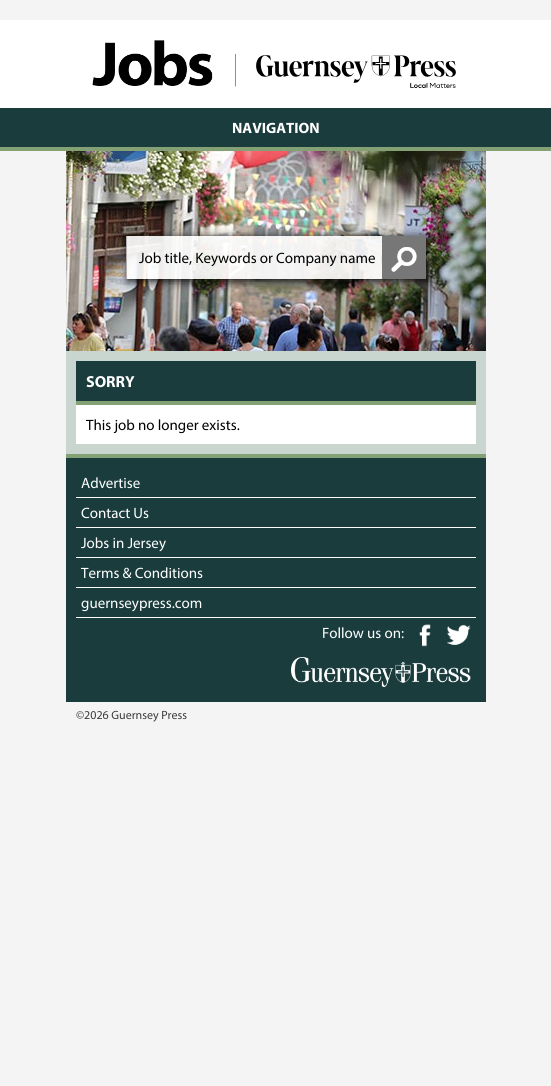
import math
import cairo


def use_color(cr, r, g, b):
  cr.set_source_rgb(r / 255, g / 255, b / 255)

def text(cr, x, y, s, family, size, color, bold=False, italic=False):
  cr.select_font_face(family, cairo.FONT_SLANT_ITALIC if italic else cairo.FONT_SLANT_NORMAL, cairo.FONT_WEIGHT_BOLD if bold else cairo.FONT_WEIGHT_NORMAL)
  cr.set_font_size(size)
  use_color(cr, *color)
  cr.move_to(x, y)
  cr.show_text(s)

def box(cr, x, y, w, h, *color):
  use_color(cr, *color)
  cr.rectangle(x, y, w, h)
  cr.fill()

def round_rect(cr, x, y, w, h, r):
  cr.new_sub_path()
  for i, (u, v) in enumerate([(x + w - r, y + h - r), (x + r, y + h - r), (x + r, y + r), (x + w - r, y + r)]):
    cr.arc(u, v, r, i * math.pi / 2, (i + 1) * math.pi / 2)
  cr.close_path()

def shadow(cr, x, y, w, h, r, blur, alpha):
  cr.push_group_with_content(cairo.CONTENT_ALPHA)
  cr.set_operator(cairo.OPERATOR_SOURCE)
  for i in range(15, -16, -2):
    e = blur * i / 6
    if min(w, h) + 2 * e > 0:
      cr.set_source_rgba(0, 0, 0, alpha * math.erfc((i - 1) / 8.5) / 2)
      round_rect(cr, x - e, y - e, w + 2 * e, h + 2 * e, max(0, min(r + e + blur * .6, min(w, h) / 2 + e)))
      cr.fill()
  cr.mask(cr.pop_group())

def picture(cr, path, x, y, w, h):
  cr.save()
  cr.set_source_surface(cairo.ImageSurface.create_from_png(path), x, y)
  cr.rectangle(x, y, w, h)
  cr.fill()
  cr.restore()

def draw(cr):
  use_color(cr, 244, 244, 244)
  cr.paint()
  box(cr, 0, 20, 551, 88, 255, 255, 255)
  picture(cr, "img_01.png", 92, 40, 144, 47)
  picture(cr, "img_02.png", 256, 55, 200, 33)
  box(cr, 0, 108, 551, 39, 26, 60, 61)
  box(cr, 0, 147, 551, 4, 132, 161, 117)
  box(cr, 66, 351, 420, 103, 201, 214, 207)
  picture(cr, "img_03.png", 66, 151, 420, 200)
  cr.save()
  cr.set_fill_rule(cairo.FILL_RULE_EVEN_ODD)
  cr.new_path()
  cr.move_to(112, 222)
  cr.line_to(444, 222)
  cr.line_to(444, 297)
  cr.line_to(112, 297)
  cr.close_path()
  cr.move_to(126, 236)
  cr.line_to(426, 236)
  cr.line_to(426, 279)
  cr.line_to(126, 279)
  cr.close_path()
  cr.clip()
  use_color(cr, 0, 0, 0)
  shadow(cr, 128, 238, 300, 43, 0, 5, 1)
  cr.restore()
  cr.set_source_rgba(1, 1, 1, 0.9)
  cr.rectangle(127, 236, 255, 43)
  cr.fill()
  box(cr, 126, 236, 1, 43, 178, 173, 178)
  picture(cr, "img_04.png", 382, 236, 44, 43)
  box(cr, 76, 405, 400, 39, 255, 255, 255)
  box(cr, 76, 361, 400, 40, 26, 60, 61)
  box(cr, 76, 401, 400, 4, 132, 161, 117)
  box(cr, 66, 458, 420, 244, 26, 60, 61)
  box(cr, 66, 454, 420, 4, 132, 161, 117)
  box(cr, 76, 497, 400, 1, 255, 255, 255)
  box(cr, 76, 527, 400, 1, 255, 255, 255)
  box(cr, 76, 557, 400, 1, 255, 255, 255)
  box(cr, 76, 587, 400, 1, 255, 255, 255)
  box(cr, 76, 617, 400, 1, 255, 255, 255)
  picture(cr, "img_05.png", 419, 624, 12, 23)
  picture(cr, "img_06.png", 447, 625, 24, 20)
  picture(cr, "img_07.png", 291, 657, 180, 30)
  text(cr, 232, 133, "NAVIGATION", "Myriad", 15, (255, 255, 255), bold=True)
  text(cr, 139, 263, "Job title, Keywords or Company name", "Myriad", 15, (0, 0, 0))
  text(cr, 86, 387, "SORRY", "Myriad", 16, (255, 255, 255), bold=True)
  text(cr, 86, 430, "This job no longer exists.", "Myriad", 15, (0, 0, 0))
  text(cr, 81, 488, "Advertise", "Myriad", 15, (255, 255, 255))
  text(cr, 81, 518, "Contact Us", "Myriad", 15, (255, 255, 255))
  text(cr, 81, 548, "Jobs in Jersey", "Myriad", 15, (255, 255, 255))
  text(cr, 81, 578, "Terms & Conditions", "Myriad", 15, (255, 255, 255))
  text(cr, 81, 608, "guernseypress.com", "Myriad", 15, (255, 255, 255))
  text(cr, 322, 638, "Follow us on:", "Myriad", 15, (255, 255, 255))
  text(cr, 76, 719, "©2026 Guernsey Press", "Myriad", 12, (60, 60, 59))


surface = cairo.ImageSurface(cairo.FORMAT_RGB24, 551, 1086)
cr = cairo.Context(surface)
options = cairo.FontOptions()
options.set_hint_metrics(cairo.HINT_METRICS_OFF)
options.set_hint_style(cairo.HINT_STYLE_NONE)
cr.set_font_options(options)
cr.set_miter_limit(4)
draw(cr)
surface.write_to_png("out.png")
